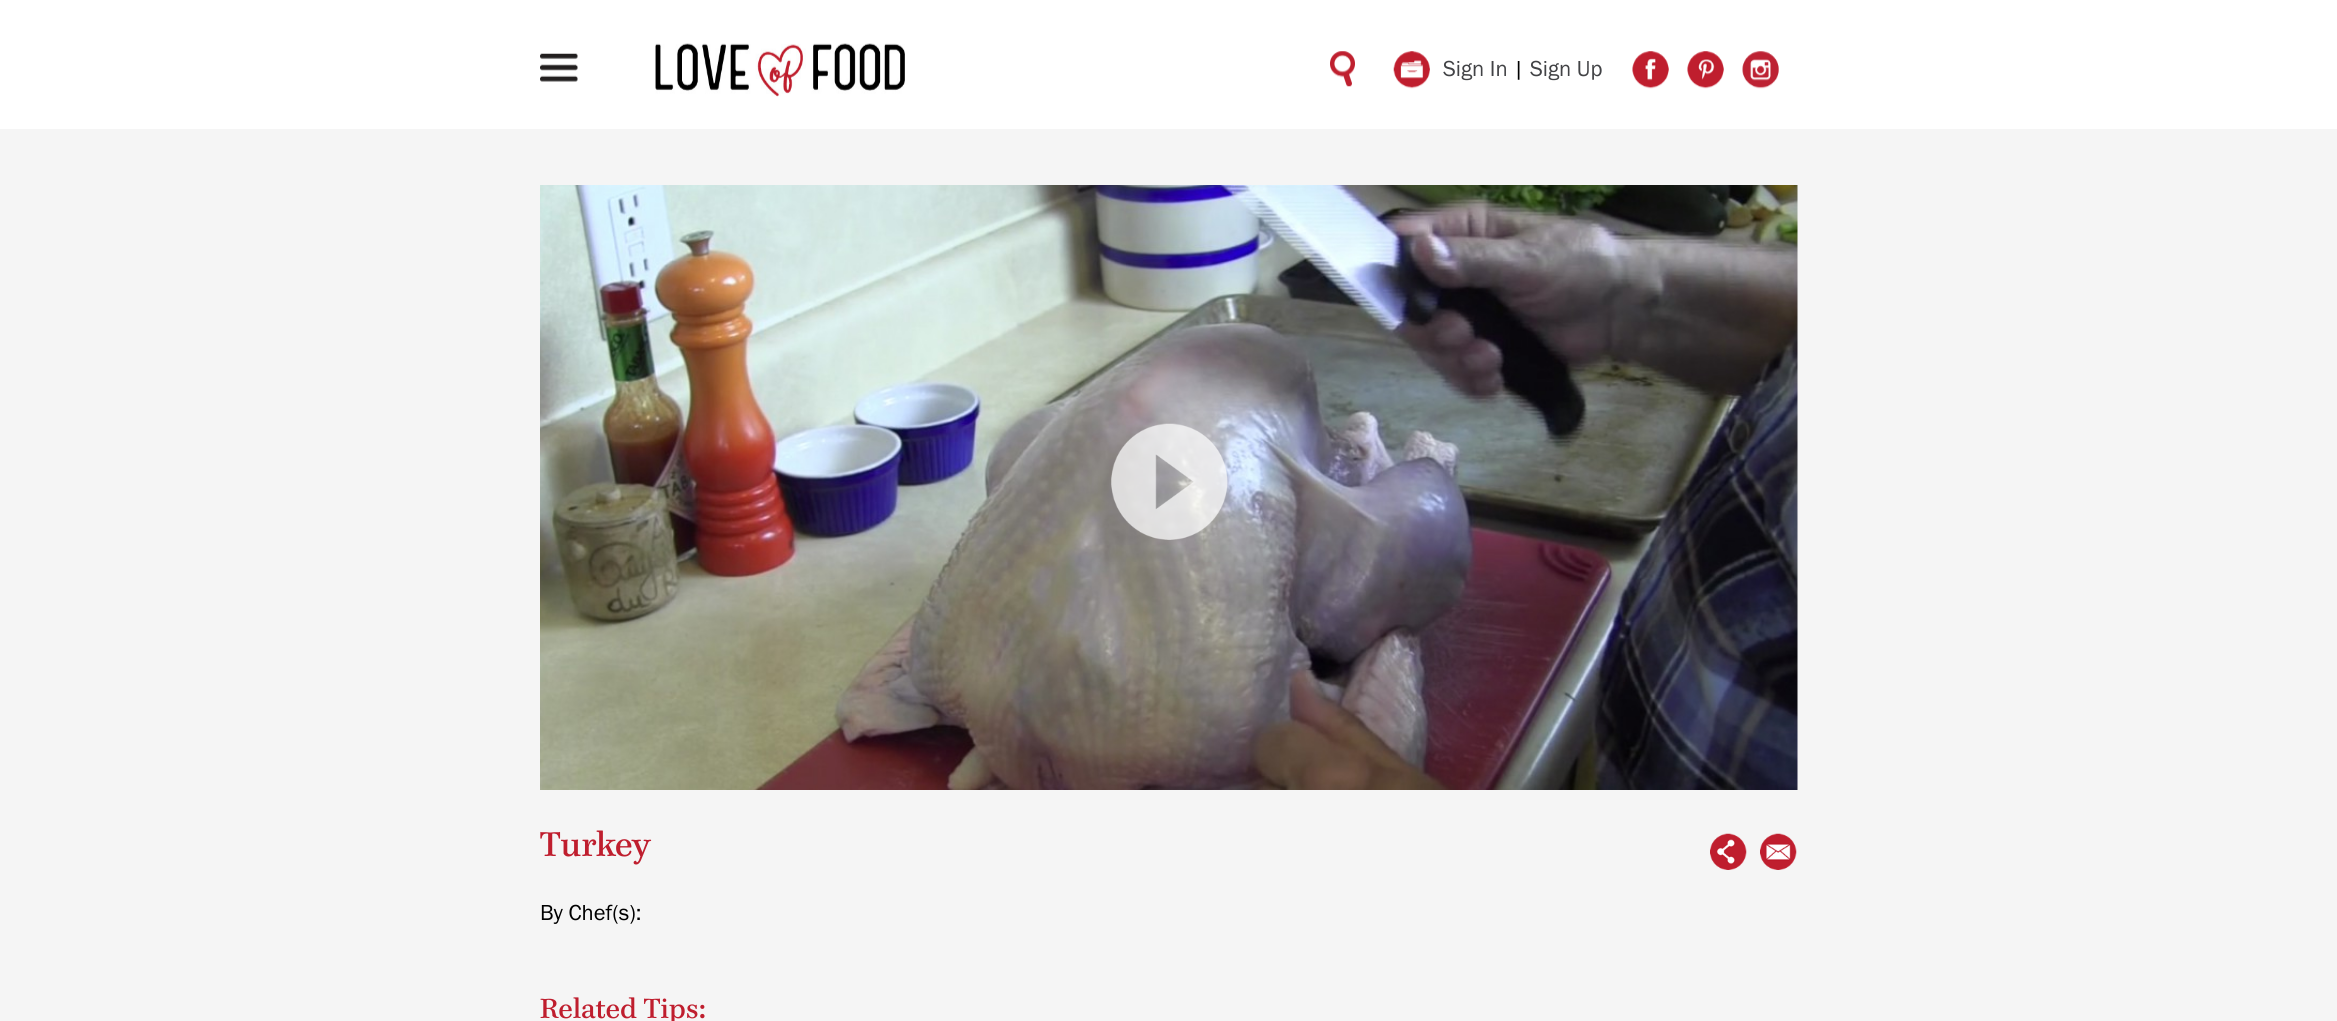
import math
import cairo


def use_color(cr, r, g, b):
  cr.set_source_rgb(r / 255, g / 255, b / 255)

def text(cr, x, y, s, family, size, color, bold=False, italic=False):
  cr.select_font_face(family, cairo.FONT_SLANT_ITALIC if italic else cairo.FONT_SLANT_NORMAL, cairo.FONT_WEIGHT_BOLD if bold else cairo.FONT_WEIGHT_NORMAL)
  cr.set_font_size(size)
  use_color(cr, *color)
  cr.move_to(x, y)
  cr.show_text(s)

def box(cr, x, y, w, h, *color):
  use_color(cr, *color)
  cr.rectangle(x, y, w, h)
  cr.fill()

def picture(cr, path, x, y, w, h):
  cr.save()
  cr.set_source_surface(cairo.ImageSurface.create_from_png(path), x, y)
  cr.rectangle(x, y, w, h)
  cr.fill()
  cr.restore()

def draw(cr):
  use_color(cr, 255, 255, 255)
  cr.paint()
  picture(cr, "img_01.png", 540, 53, 38, 29)
  picture(cr, "img_02.png", 655, 43, 250, 54)
  picture(cr, "img_03.png", 1330, 51, 25, 36)
  picture(cr, "img_04.png", 1393, 51, 37, 38)
  picture(cr, "img_05.png", 1632, 51, 37, 38)
  picture(cr, "img_06.png", 1687, 51, 37, 38)
  picture(cr, "img_07.png", 1742, 51, 37, 38)
  box(cr, 0, 129, 2337, 892, 245, 245, 245)
  picture(cr, "img_08.png", 540, 185, 1258, 605)
  picture(cr, "img_09.png", 1111, 423, 117, 117)
  picture(cr, "img_10.png", 1710, 833, 37, 37)
  picture(cr, "img_11.png", 1760, 833, 37, 37)
  text(cr, 1443, 76, "Sign In", "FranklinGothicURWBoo", 22.5, (66, 67, 70))
  text(cr, 1513, 76, "|", "FranklinGothicURWBoo", 22.5, (0, 0, 0))
  text(cr, 1530, 76, "Sign Up", "FranklinGothicURWBoo", 22.5, (66, 67, 70))
  text(cr, 540, 856, "Turkey", "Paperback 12", 34, (191, 30, 46))
  text(cr, 540, 920, "By Chef(s):", "FranklinGothicURWBoo", 22.5, (0, 0, 0))
  text(cr, 540, 1018, "Related Tips:", "Paperback 12", 27.5, (191, 30, 46))


surface = cairo.ImageSurface(cairo.FORMAT_RGB24, 2337, 1021)
cr = cairo.Context(surface)
options = cairo.FontOptions()
options.set_hint_metrics(cairo.HINT_METRICS_OFF)
options.set_hint_style(cairo.HINT_STYLE_NONE)
cr.set_font_options(options)
cr.set_miter_limit(4)
draw(cr)
surface.write_to_png("out.png")
